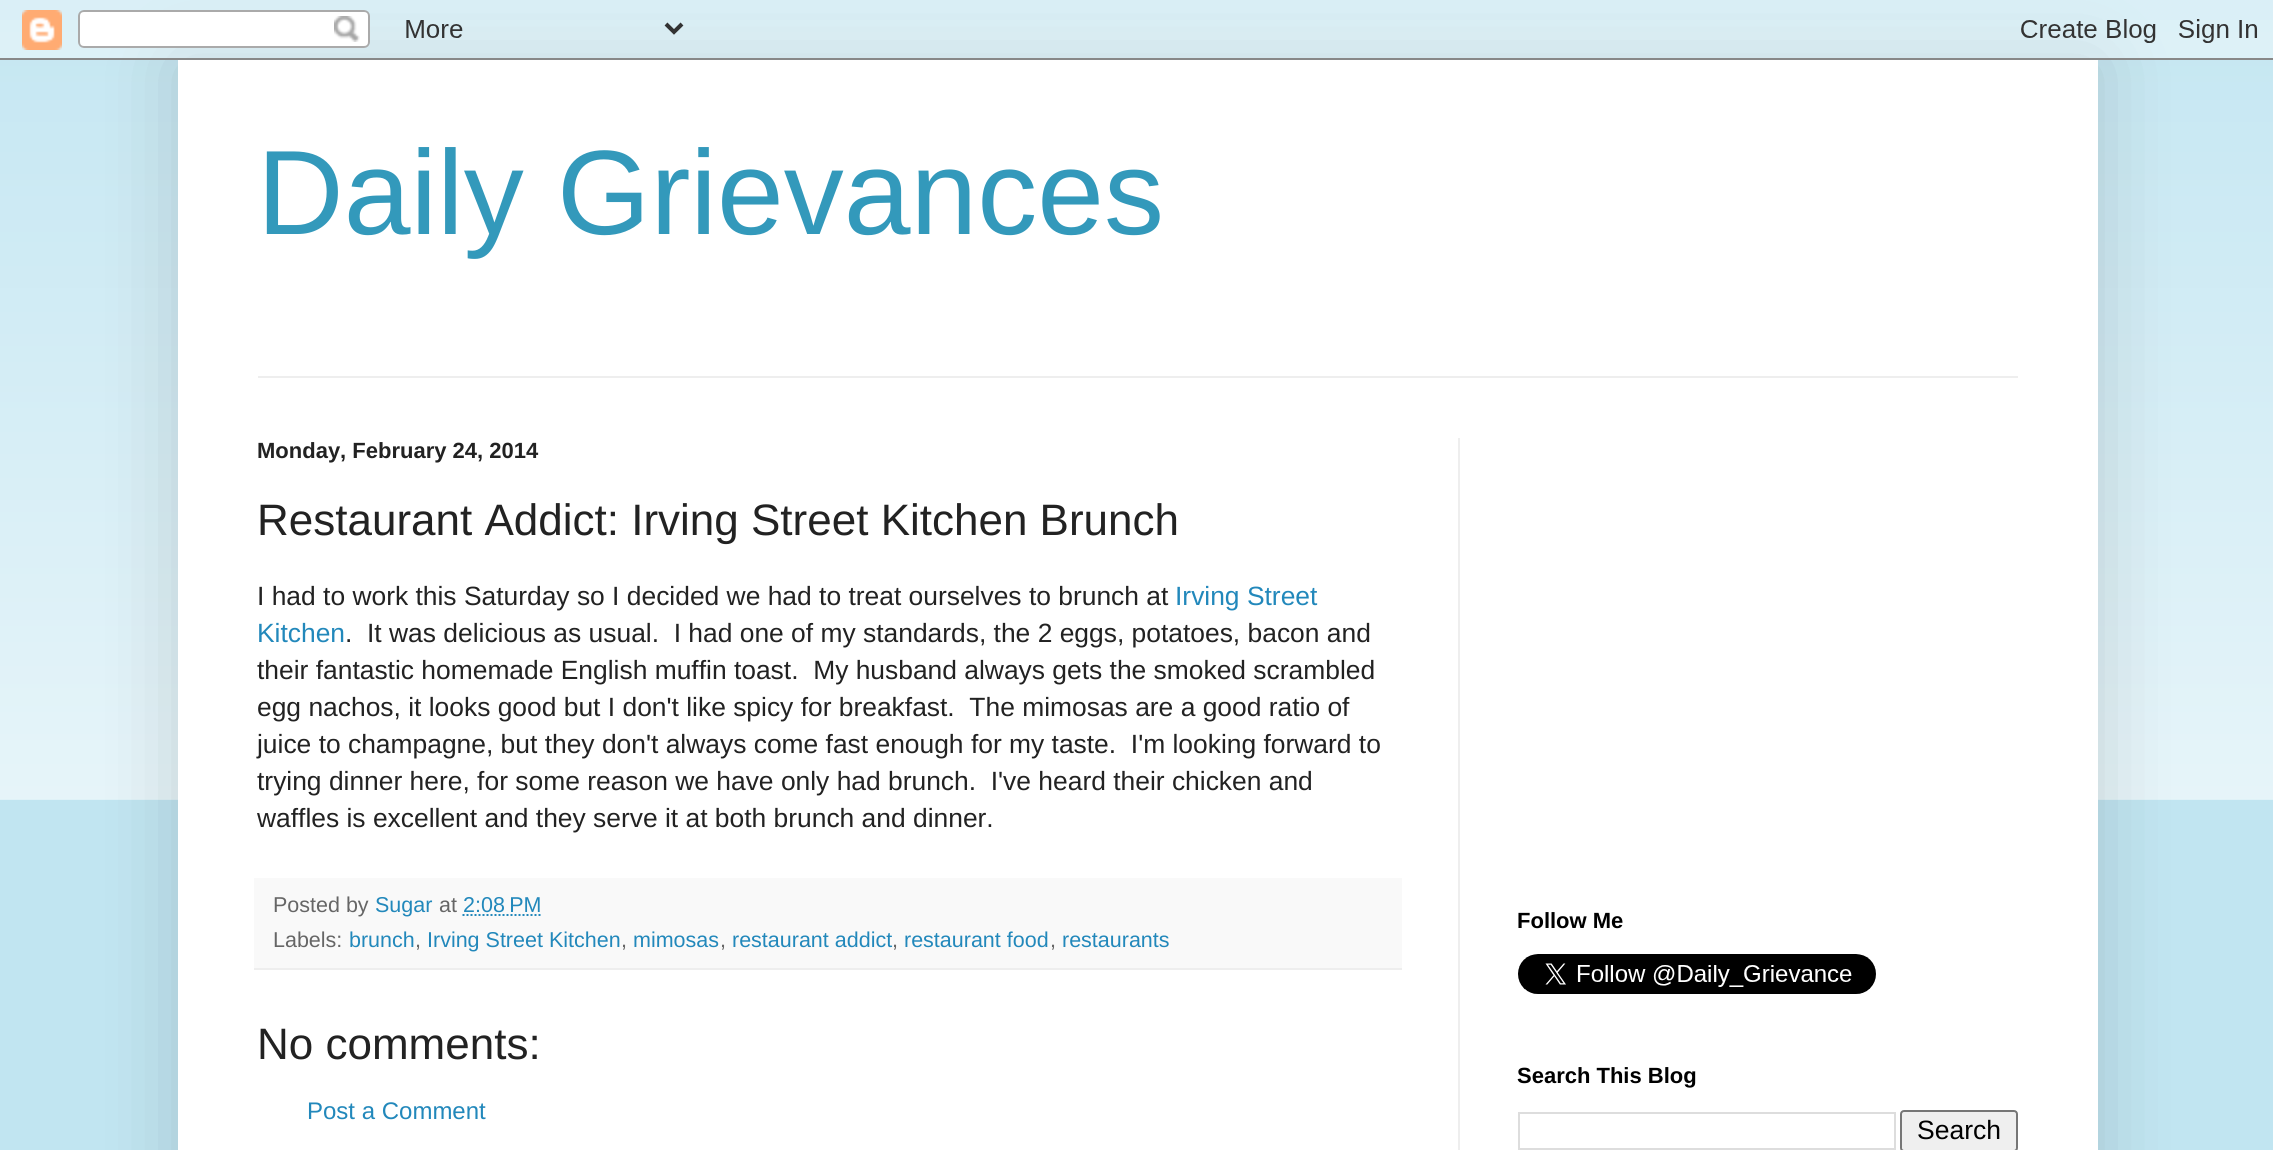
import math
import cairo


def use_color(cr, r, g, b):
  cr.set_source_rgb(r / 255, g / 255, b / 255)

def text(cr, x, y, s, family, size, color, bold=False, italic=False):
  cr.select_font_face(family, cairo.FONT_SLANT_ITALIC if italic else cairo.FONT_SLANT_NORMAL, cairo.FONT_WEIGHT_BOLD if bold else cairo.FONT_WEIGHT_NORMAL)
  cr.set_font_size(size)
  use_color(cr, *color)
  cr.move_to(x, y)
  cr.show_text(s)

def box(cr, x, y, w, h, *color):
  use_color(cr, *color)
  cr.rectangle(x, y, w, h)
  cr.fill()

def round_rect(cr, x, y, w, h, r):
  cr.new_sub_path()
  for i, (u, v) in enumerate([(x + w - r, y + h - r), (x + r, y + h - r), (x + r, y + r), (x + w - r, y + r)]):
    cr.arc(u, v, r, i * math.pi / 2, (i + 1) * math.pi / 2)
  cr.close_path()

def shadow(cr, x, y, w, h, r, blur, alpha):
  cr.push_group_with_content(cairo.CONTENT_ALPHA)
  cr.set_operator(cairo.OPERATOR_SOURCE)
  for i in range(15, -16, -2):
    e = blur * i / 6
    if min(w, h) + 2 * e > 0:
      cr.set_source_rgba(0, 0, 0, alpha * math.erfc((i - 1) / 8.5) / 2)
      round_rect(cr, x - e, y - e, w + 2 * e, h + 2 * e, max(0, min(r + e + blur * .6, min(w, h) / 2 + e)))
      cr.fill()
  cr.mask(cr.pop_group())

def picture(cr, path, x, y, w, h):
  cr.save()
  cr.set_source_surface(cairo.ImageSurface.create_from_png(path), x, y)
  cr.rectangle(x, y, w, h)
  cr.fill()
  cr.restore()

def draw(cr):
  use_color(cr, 193, 229, 241)
  cr.paint()
  picture(cr, "img_02.png", 0, 20, 2273, 780)
  use_color(cr, 0, 0, 0)
  shadow(cr, 178, 60, 1920, 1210, 0, 40, 0.15)
  picture(cr, "img_01.png", 0, 0, 2273, 60)
  box(cr, 178, 60, 1920, 1090, 255, 255, 255)
  box(cr, 258, 376, 1760, 2, 238, 238, 238)
  box(cr, 1458, 438, 2, 712, 238, 238, 238)
  box(cr, 254, 878, 1148, 90, 249, 249, 249)
  box(cr, 254, 968, 1148, 2, 238, 238, 238)
  cr.new_path()
  cr.move_to(462.5, 915)
  cr.line_to(541.5, 915)
  use_color(cr, 34, 136, 187)
  cr.set_dash([2, 2])
  cr.stroke()
  picture(cr, "img_03.png", 1518, 954, 358, 40)
  cr.rectangle(1519, 1113, 376, 36)
  use_color(cr, 221, 221, 221)
  cr.set_dash([])
  cr.stroke()
  use_color(cr, 239, 239, 239)
  round_rect(cr, 1901, 1111, 116, 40, 3)
  cr.fill_preserve()
  use_color(cr, 118, 118, 118)
  cr.stroke()
  text(cr, 257, 234, "Daily Grievances", "Liberation Sans", 120, (51, 153, 187))
  text(cr, 257, 458, "Monday, February 24, 2014", "Liberation Sans", 22, (34, 34, 34), bold=True)
  text(cr, 257, 535, "Restaurant Addict: Irving Street Kitchen Brunch", "Liberation Sans", 44, (34, 34, 34))
  text(cr, 257, 605, "I had to work this Saturday so I decided we had to treat ourselves to brunch at", "Liberation Sans", 26.4, (34, 34, 34))
  text(cr, 1175, 605, "Irving Street", "Liberation Sans", 26.4, (34, 136, 187))
  text(cr, 257, 642, "Kitchen", "Liberation Sans", 26.4, (34, 136, 187))
  text(cr, 345, 642, ".  It was delicious as usual.  I had one of my standards, the 2 eggs, potatoes, bacon and", "Liberation Sans", 26.4, (34, 34, 34))
  text(cr, 257, 679, "their fantastic homemade English muffin toast.  My husband always gets the smoked scrambled", "Liberation Sans", 26.4, (34, 34, 34))
  text(cr, 257, 716, "egg nachos, it looks good but I don't like spicy for breakfast.  The mimosas are a good ratio of", "Liberation Sans", 26.4, (34, 34, 34))
  text(cr, 257, 753, "juice to champagne, but they don't always come fast enough for my taste.  I'm looking forward to", "Liberation Sans", 26.4, (34, 34, 34))
  text(cr, 257, 790, "trying dinner here, for some reason we have only had brunch.  I've heard their chicken and", "Liberation Sans", 26.4, (34, 34, 34))
  text(cr, 257, 827, "waffles is excellent and they serve it at both brunch and dinner.", "Liberation Sans", 26.4, (34, 34, 34))
  text(cr, 273, 912, "Posted by", "Liberation Sans", 21.5, (102, 102, 102))
  text(cr, 375, 912, "Sugar", "Liberation Sans", 21.5, (34, 136, 187))
  text(cr, 439, 912, "at", "Liberation Sans", 21.5, (102, 102, 102))
  text(cr, 463, 912, "2:08 PM", "Liberation Sans", 21.5, (34, 136, 187))
  text(cr, 273, 947, "Labels:", "Liberation Sans", 21.5, (102, 102, 102))
  text(cr, 349, 947, "brunch", "Liberation Sans", 21.5, (34, 136, 187))
  text(cr, 415, 947, ",", "Liberation Sans", 21.5, (102, 102, 102))
  text(cr, 427, 947, "Irving Street Kitchen", "Liberation Sans", 21.5, (34, 136, 187))
  text(cr, 621, 947, ",", "Liberation Sans", 21.5, (102, 102, 102))
  text(cr, 633, 947, "mimosas", "Liberation Sans", 21.5, (34, 136, 187))
  text(cr, 720, 947, ",", "Liberation Sans", 21.5, (102, 102, 102))
  text(cr, 732, 947, "restaurant addict", "Liberation Sans", 21.5, (34, 136, 187))
  text(cr, 892, 947, ",", "Liberation Sans", 21.5, (102, 102, 102))
  text(cr, 904, 947, "restaurant food", "Liberation Sans", 21.5, (34, 136, 187))
  text(cr, 1050, 947, ",", "Liberation Sans", 21.5, (102, 102, 102))
  text(cr, 1062, 947, "restaurants", "Liberation Sans", 21.5, (34, 136, 187))
  text(cr, 257, 1059, "No comments:", "Liberation Sans", 44, (34, 34, 34))
  text(cr, 307, 1119, "Post a Comment", "Liberation Sans", 24, (34, 136, 187))
  text(cr, 1517, 928, "Follow Me", "Liberation Sans", 22, (0, 0, 0), bold=True)
  text(cr, 1517, 1083, "Search This Blog", "Liberation Sans", 22, (0, 0, 0), bold=True)
  text(cr, 1917, 1139, "Search", "Liberation Sans", 26.5, (0, 0, 0))


surface = cairo.ImageSurface(cairo.FORMAT_RGB24, 2273, 1150)
cr = cairo.Context(surface)
options = cairo.FontOptions()
options.set_hint_metrics(cairo.HINT_METRICS_OFF)
options.set_hint_style(cairo.HINT_STYLE_NONE)
cr.set_font_options(options)
cr.set_miter_limit(4)
draw(cr)
surface.write_to_png("out.png")
